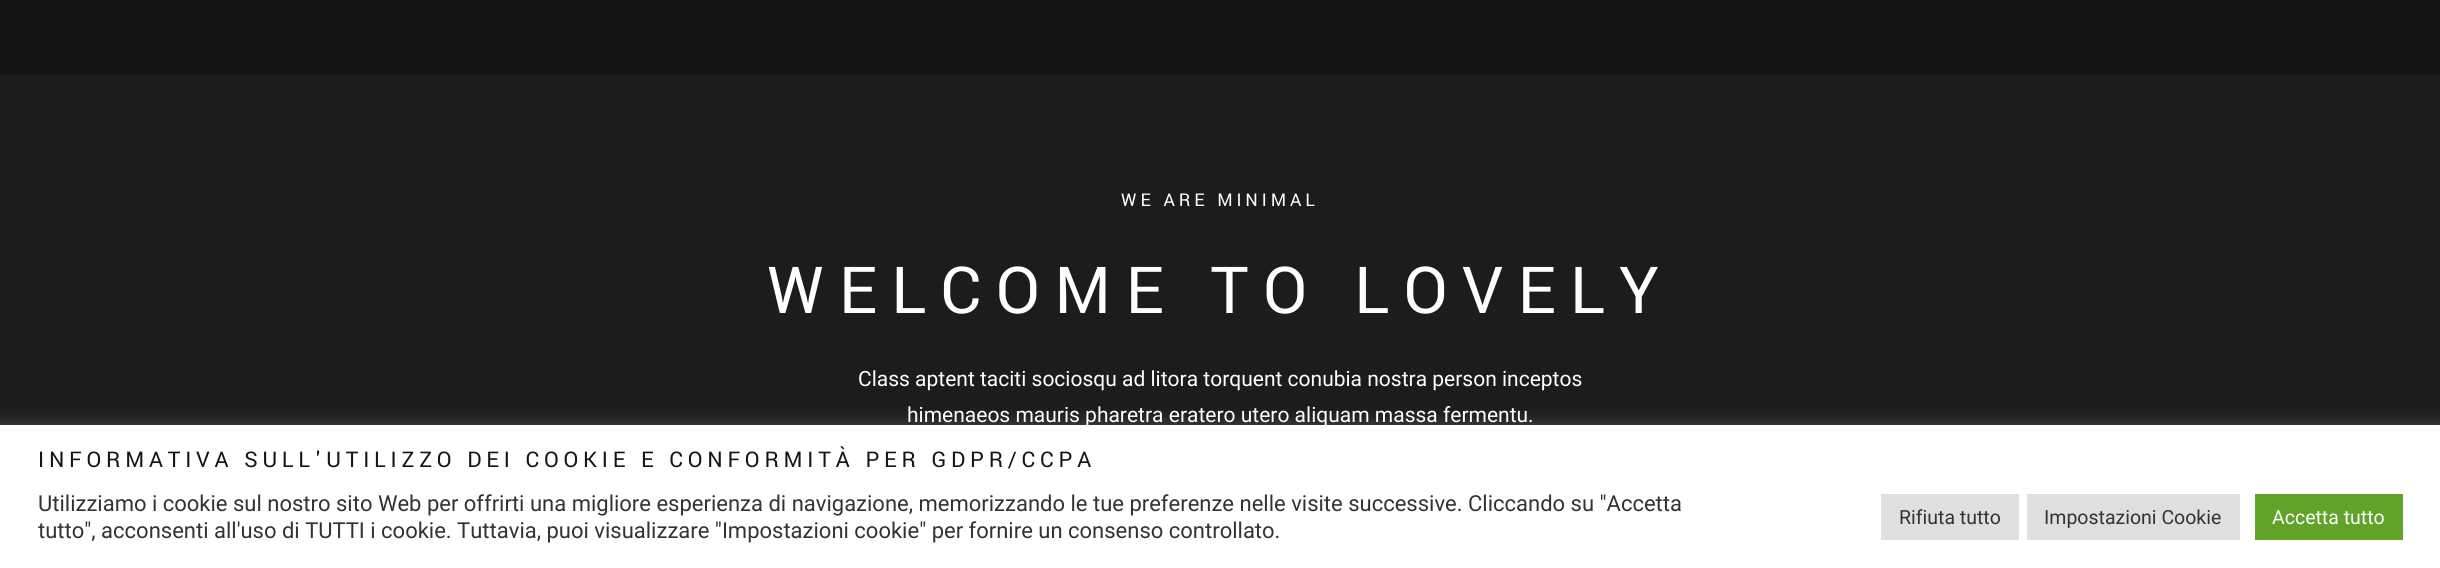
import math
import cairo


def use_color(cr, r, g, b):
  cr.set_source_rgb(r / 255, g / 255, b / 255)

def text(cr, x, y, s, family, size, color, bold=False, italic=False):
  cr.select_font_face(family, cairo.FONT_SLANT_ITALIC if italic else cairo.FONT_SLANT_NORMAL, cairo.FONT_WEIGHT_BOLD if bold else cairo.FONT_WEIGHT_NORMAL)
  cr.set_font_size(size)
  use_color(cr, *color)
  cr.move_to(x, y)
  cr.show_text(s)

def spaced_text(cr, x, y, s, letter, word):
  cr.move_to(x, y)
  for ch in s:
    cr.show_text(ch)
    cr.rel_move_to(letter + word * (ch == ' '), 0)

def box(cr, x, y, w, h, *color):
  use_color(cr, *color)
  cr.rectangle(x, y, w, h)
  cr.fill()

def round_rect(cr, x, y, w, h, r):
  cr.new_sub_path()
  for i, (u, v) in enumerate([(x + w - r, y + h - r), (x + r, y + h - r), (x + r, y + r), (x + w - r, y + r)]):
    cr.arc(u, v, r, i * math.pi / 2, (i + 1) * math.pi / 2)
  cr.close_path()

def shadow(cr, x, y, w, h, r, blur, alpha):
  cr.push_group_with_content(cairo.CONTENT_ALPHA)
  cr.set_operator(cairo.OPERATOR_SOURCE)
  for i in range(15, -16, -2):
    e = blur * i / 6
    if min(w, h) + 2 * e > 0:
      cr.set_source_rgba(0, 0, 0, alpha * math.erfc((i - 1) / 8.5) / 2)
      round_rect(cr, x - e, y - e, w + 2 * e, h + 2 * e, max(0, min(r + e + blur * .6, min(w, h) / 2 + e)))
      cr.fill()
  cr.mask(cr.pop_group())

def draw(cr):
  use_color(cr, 21, 21, 21)
  cr.paint()
  box(cr, 0, 74, 2440, 351, 28, 28, 28)
  use_color(cr, 172, 171, 171)
  shadow(cr, 0, 423, 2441, 144, 0, 7.5, 0.3)
  box(cr, 0, 425, 2440, 143, 255, 255, 255)
  box(cr, 1881, 494, 138, 46, 222, 223, 224)
  box(cr, 2027, 494, 213, 46, 222, 223, 224)
  box(cr, 2255, 494, 148, 46, 97, 162, 41)
  cr.select_font_face("Yantramanav")
  cr.set_font_size(19.5)
  use_color(cr, 255, 255, 255)
  spaced_text(cr, 1121, 206, "WE ARE MINIMAL", 3.9, 0)
  cr.set_font_size(72)
  spaced_text(cr, 767, 313, "WELCOME TO LOVELY", 14.4, 0)
  text(cr, 858, 386, "Class aptent taciti sociosqu ad litora torquent conubia nostra person inceptos", "Roboto", 21, (255, 255, 255))
  text(cr, 907, 422, "himenaeos mauris pharetra eratero utero aliquam massa fermentu.", "Roboto", 21, (255, 255, 255))
  cr.select_font_face("Yantramanav")
  cr.set_font_size(24)
  use_color(cr, 21, 21, 21)
  spaced_text(cr, 38, 467, "INFORMATIVA SULL'UTILIZZO DEI COOKIE E CONFORMITÀ PER GDPR/CCPA", 4.8, 0)
  text(cr, 38, 511, "Utilizziamo i cookie sul nostro sito Web per offrirti una migliore esperienza di navigazione, memorizzando le tue preferenze nelle visite successive. Cliccando su \"Accetta", "Roboto", 22, (51, 51, 51))
  text(cr, 38, 538, "tutto\", acconsenti all'uso di TUTTI i cookie. Tuttavia, puoi visualizzare \"Impostazioni cookie\" per fornire un consenso controllato.", "Roboto", 22, (51, 51, 51))
  text(cr, 1899, 524, "Rifiuta tutto", "Roboto", 19.5, (51, 51, 51))
  text(cr, 2044, 524, "Impostazioni Cookie", "Roboto", 19.5, (51, 51, 51))
  text(cr, 2272, 524, "Accetta tutto", "Roboto", 19.5, (255, 255, 255))


surface = cairo.ImageSurface(cairo.FORMAT_RGB24, 2440, 568)
cr = cairo.Context(surface)
options = cairo.FontOptions()
options.set_hint_metrics(cairo.HINT_METRICS_OFF)
options.set_hint_style(cairo.HINT_STYLE_NONE)
cr.set_font_options(options)
cr.set_miter_limit(4)
draw(cr)
surface.write_to_png("out.png")
